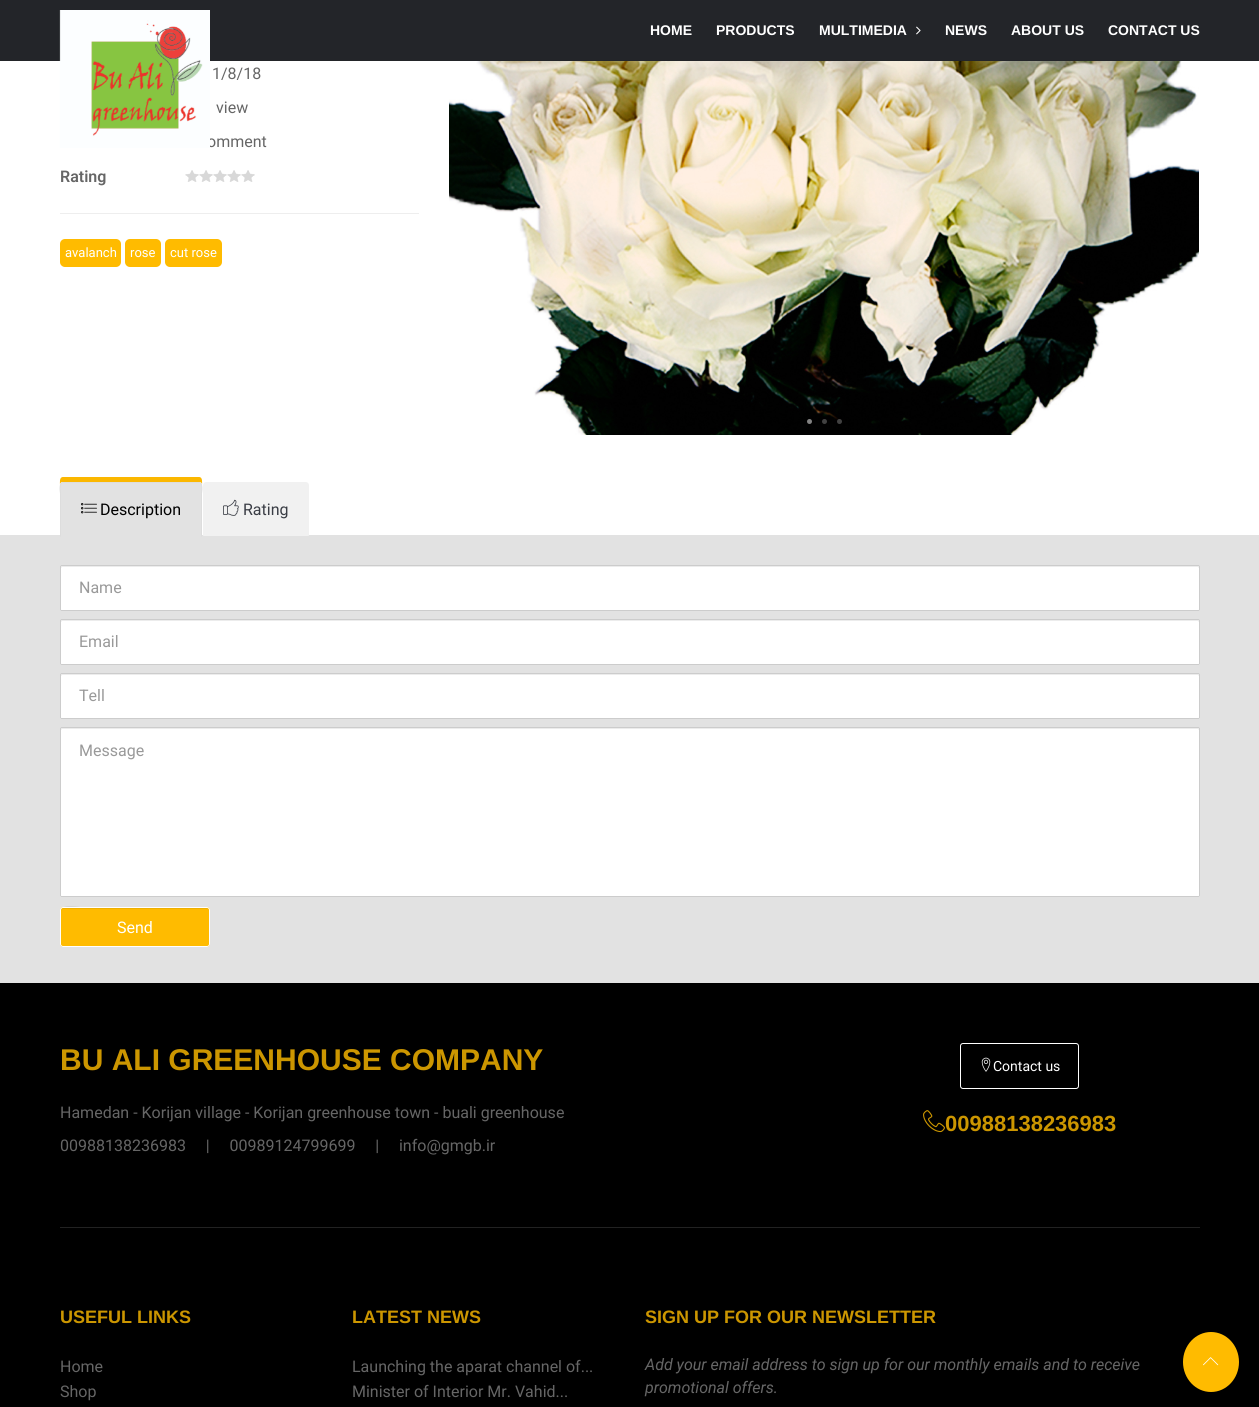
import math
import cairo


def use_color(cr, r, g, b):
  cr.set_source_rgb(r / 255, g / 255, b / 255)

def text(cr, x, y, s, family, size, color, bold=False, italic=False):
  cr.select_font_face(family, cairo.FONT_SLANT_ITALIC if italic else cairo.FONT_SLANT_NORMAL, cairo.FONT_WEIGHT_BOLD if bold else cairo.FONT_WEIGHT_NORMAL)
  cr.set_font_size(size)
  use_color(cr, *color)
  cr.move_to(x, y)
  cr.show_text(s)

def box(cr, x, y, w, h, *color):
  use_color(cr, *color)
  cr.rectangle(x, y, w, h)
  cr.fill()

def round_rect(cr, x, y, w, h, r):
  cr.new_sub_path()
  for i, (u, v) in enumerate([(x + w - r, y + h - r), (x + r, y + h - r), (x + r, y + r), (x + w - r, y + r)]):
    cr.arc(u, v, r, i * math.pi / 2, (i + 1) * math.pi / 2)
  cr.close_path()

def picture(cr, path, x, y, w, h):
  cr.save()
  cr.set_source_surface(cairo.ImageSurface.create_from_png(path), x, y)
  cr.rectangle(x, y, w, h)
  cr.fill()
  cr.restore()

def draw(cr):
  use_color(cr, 255, 255, 255)
  cr.paint()
  box(cr, 0, 0, 1259, 61, 35, 37, 41)
  picture(cr, "img_02.png", 916, 26, 5, 9)
  picture(cr, "img_03.png", 185, 170, 14, 12)
  picture(cr, "img_03.png", 199, 170, 14, 12)
  picture(cr, "img_03.png", 213, 170, 14, 12)
  picture(cr, "img_03.png", 227, 170, 14, 12)
  picture(cr, "img_03.png", 241, 170, 14, 12)
  box(cr, 60, 213, 359, 1, 238, 238, 238)
  use_color(cr, 255, 187, 0)
  round_rect(cr, 60, 239, 61, 28, 5)
  cr.fill()
  round_rect(cr, 125, 239, 36, 28, 5)
  cr.fill()
  round_rect(cr, 165, 239, 57, 28, 5)
  cr.fill()
  picture(cr, "img_04.png", 449, 61, 750, 374)
  use_color(cr, 130, 130, 130)
  cr.arc(809.5, 421.5, 2.5, 0, 2 * math.pi)
  cr.fill()
  use_color(cr, 65, 65, 65)
  cr.arc(824.5, 421.5, 2.5, 0, 2 * math.pi)
  cr.fill()
  cr.set_source_rgba(0.51, 0.51, 0.51, 0.5)
  cr.arc(839.5, 421.5, 2.5, 0, 2 * math.pi)
  cr.fill()
  box(cr, 0, 535, 1259, 448, 226, 226, 226)
  use_color(cr, 251, 183, 0)
  cr.new_path()
  cr.move_to(63, 477)
  cr.curve_to(59, 477, 60, 483, 60, 485)
  cr.curve_to(60, 483, 61, 482, 63, 482)
  cr.line_to(199, 482)
  cr.curve_to(201, 482, 202, 483, 202, 485)
  cr.curve_to(202, 483, 203, 477, 199, 477)
  cr.close_path()
  cr.fill()
  use_color(cr, 226, 226, 226)
  cr.new_path()
  cr.move_to(63, 482)
  cr.line_to(199, 482)
  cr.curve_to(200.5, 482, 202, 483.5, 202, 485)
  cr.line_to(202, 536)
  cr.curve_to(202, 536.5, 201.5, 537, 201, 537)
  cr.line_to(61, 537)
  cr.curve_to(60.5, 537, 60, 536.5, 60, 536)
  cr.line_to(60, 485)
  cr.curve_to(60, 483.5, 61.5, 482, 63, 482)
  cr.close_path()
  cr.fill()
  cr.new_path()
  cr.move_to(60.5, 536.5)
  cr.line_to(60.5, 493.5)
  cr.curve_to(60.5, 493, 58.5, 482.5, 63, 482.5)
  cr.line_to(199, 482.5)
  cr.curve_to(203.5, 482.5, 201.5, 493, 201.5, 493.5)
  cr.line_to(201.5, 536.5)
  use_color(cr, 221, 221, 221)
  cr.set_line_width(1)
  cr.stroke()
  picture(cr, "img_05.png", 81, 503, 16, 11)
  use_color(cr, 241, 241, 241)
  cr.new_path()
  cr.move_to(206, 482)
  cr.line_to(306, 482)
  cr.curve_to(307.5, 482, 309, 483.5, 309, 485)
  cr.line_to(309, 535)
  cr.curve_to(309, 535.5, 308.5, 536, 308, 536)
  cr.line_to(204, 536)
  cr.curve_to(203.5, 536, 203, 535.5, 203, 535)
  cr.line_to(203, 485)
  cr.curve_to(203, 483.5, 204.5, 482, 206, 482)
  cr.close_path()
  cr.fill()
  picture(cr, "img_06.png", 223, 499, 16, 17)
  use_color(cr, 255, 255, 255)
  round_rect(cr, 60, 565, 1140, 46, 1.5)
  cr.fill()
  use_color(cr, 236, 236, 236)
  cr.new_path()
  cr.move_to(62, 567)
  cr.line_to(1198, 567)
  cr.line_to(1199, 568)
  cr.line_to(1199, 566)
  cr.line_to(630, 566)
  cr.line_to(61, 566)
  cr.line_to(61, 568)
  cr.close_path()
  cr.fill()
  round_rect(cr, 60.5, 565.5, 1139, 45, 1)
  use_color(cr, 204, 204, 204)
  cr.stroke()
  use_color(cr, 255, 255, 255)
  round_rect(cr, 60, 619, 1140, 46, 1.5)
  cr.fill()
  use_color(cr, 236, 236, 236)
  cr.new_path()
  cr.move_to(62, 621)
  cr.line_to(1198, 621)
  cr.line_to(1199, 622)
  cr.line_to(1199, 620)
  cr.line_to(630, 620)
  cr.line_to(61, 620)
  cr.line_to(61, 622)
  cr.close_path()
  cr.fill()
  round_rect(cr, 60.5, 619.5, 1139, 45, 1)
  use_color(cr, 204, 204, 204)
  cr.stroke()
  use_color(cr, 255, 255, 255)
  round_rect(cr, 60, 673, 1140, 46, 1.5)
  cr.fill()
  use_color(cr, 236, 236, 236)
  cr.new_path()
  cr.move_to(62, 675)
  cr.line_to(1198, 675)
  cr.line_to(1199, 676)
  cr.line_to(1199, 674)
  cr.line_to(630, 674)
  cr.line_to(61, 674)
  cr.line_to(61, 676)
  cr.close_path()
  cr.fill()
  round_rect(cr, 60.5, 673.5, 1139, 45, 1)
  use_color(cr, 204, 204, 204)
  cr.stroke()
  use_color(cr, 255, 255, 255)
  round_rect(cr, 60, 727, 1140, 170, 1.5)
  cr.fill()
  use_color(cr, 236, 236, 236)
  cr.new_path()
  cr.move_to(62, 729)
  cr.line_to(1198, 729)
  cr.line_to(1199, 730)
  cr.line_to(1199, 728)
  cr.line_to(630, 728)
  cr.line_to(61, 728)
  cr.line_to(61, 730)
  cr.close_path()
  cr.fill()
  round_rect(cr, 60.5, 727.5, 1139, 169, 1)
  use_color(cr, 204, 204, 204)
  cr.stroke()
  use_color(cr, 255, 187, 0)
  round_rect(cr, 60, 907, 150, 40, 3)
  cr.fill()
  cr.set_source_rgba(0, 0, 0, 0.07)
  cr.new_path()
  cr.move_to(63, 909)
  cr.line_to(207, 909)
  cr.curve_to(208, 909, 209, 910, 209, 911)
  cr.curve_to(209, 910, 209, 909, 208, 908)
  cr.line_to(87, 908)
  cr.curve_to(84, 908, 61, 902, 61, 911)
  cr.curve_to(61, 910, 62, 909, 63, 909)
  cr.close_path()
  cr.fill()
  round_rect(cr, 60.5, 907.5, 149, 39, 2.5)
  use_color(cr, 255, 255, 255)
  cr.stroke()
  box(cr, 0, 983, 1259, 424, 0, 0, 0)
  box(cr, 60, 1227, 1140, 1, 34, 34, 34)
  round_rect(cr, 960.5, 1043.5, 118, 45, 2.5)
  use_color(cr, 255, 255, 255)
  cr.stroke()
  picture(cr, "img_07.png", 981, 1057, 10, 15)
  picture(cr, "img_08.png", 923, 1110, 22, 23)
  use_color(cr, 255, 187, 0)
  cr.new_path()
  cr.move_to(1211, 1332)
  cr.curve_to(1226.5, 1332, 1239, 1345.5, 1239, 1362)
  cr.curve_to(1239, 1378.5, 1226.5, 1392, 1211, 1392)
  cr.curve_to(1195.5, 1392, 1183, 1378.5, 1183, 1362)
  cr.curve_to(1183, 1345.5, 1195.5, 1332, 1211, 1332)
  cr.close_path()
  cr.fill()
  picture(cr, "img_09.png", 1203, 1357, 16, 9)
  text(cr, 650, 35, "HOME", "Liberation Sans", 14, (255, 255, 255), bold=True)
  text(cr, 716, 35, "PRODUCTS", "Liberation Sans", 14, (255, 255, 255), bold=True)
  text(cr, 819, 35, "MULTIMEDIA", "Liberation Sans", 14, (255, 255, 255), bold=True)
  text(cr, 945, 35, "NEWS", "Liberation Sans", 14, (255, 255, 255), bold=True)
  text(cr, 1011, 35, "ABOUT US", "Liberation Sans", 14, (255, 255, 255), bold=True)
  text(cr, 1108, 35, "CONTACT US", "Liberation Sans", 14, (255, 255, 255), bold=True)
  text(cr, 212, 79, "1/8/18", "Roboto", 16, (102, 102, 102))
  text(cr, 216, 113, "view", "Roboto", 16, (102, 102, 102))
  text(cr, 207, 147, "omment", "Roboto", 16, (102, 102, 102))
  picture(cr, "img_01.png", 59, 10, 151, 138)
  text(cr, 60, 182, "Rating", "Roboto SemiBold", 16, (102, 102, 102))
  text(cr, 65, 257, "avalanch", "Roboto", 13, (255, 255, 255))
  text(cr, 130, 257, "rose", "Roboto", 13, (255, 255, 255))
  text(cr, 170, 257, "cut rose", "Roboto", 13, (255, 255, 255))
  text(cr, 100, 515, "Description", "Roboto", 16, (0, 0, 0))
  text(cr, 243, 515, "Rating", "Roboto", 16, (58, 61, 69))
  text(cr, 79, 593, "Name", "Roboto", 16, (153, 153, 153))
  text(cr, 79, 647, "Email", "Roboto", 16, (153, 153, 153))
  text(cr, 79, 701, "Tell", "Roboto", 16, (153, 153, 153))
  text(cr, 79, 756, "Message", "Roboto", 16, (153, 153, 153))
  text(cr, 117, 933, "Send", "Roboto", 16, (255, 255, 255))
  text(cr, 60, 1070, "BU ALI GREENHOUSE COMPANY", "Liberation Sans", 30, (204, 150, 0), bold=True)
  text(cr, 60, 1118, "Hamedan - Korijan village - Korijan greenhouse town - buali greenhouse", "Roboto", 16, (102, 102, 102))
  text(cr, 60, 1151, "00988138236983     |     00989124799699     |     info@gmgb.ir", "Roboto", 16, (102, 102, 102))
  text(cr, 993, 1071, "Contact us", "Roboto", 14, (255, 255, 255))
  text(cr, 945, 1131, "00988138236983", "Liberation Sans", 22, (204, 150, 0), bold=True)
  text(cr, 60, 1323, "USEFUL LINKS", "Liberation Sans", 18, (204, 150, 0), bold=True)
  text(cr, 60, 1372, "Home", "Roboto", 16, (102, 102, 102))
  text(cr, 60, 1397, "Shop", "Roboto", 16, (102, 102, 102))
  text(cr, 352, 1323, "LATEST NEWS", "Liberation Sans", 18, (204, 150, 0), bold=True)
  text(cr, 352, 1372, "Launching the aparat channel of...", "Roboto", 16, (102, 102, 102))
  text(cr, 352, 1397, "Minister of Interior Mr. Vahid...", "Roboto", 16, (102, 102, 102))
  text(cr, 645, 1323, "SIGN UP FOR OUR NEWSLETTER", "Liberation Sans", 18, (204, 150, 0), bold=True)
  text(cr, 645, 1370, "Add your email address to sign up for our monthly emails and to receive", "Roboto", 16, (102, 102, 102), italic=True)
  text(cr, 645, 1393, "promotional offers.", "Roboto", 16, (102, 102, 102), italic=True)


surface = cairo.ImageSurface(cairo.FORMAT_RGB24, 1259, 1407)
cr = cairo.Context(surface)
options = cairo.FontOptions()
options.set_hint_metrics(cairo.HINT_METRICS_OFF)
options.set_hint_style(cairo.HINT_STYLE_NONE)
cr.set_font_options(options)
cr.set_miter_limit(4)
draw(cr)
surface.write_to_png("out.png")
